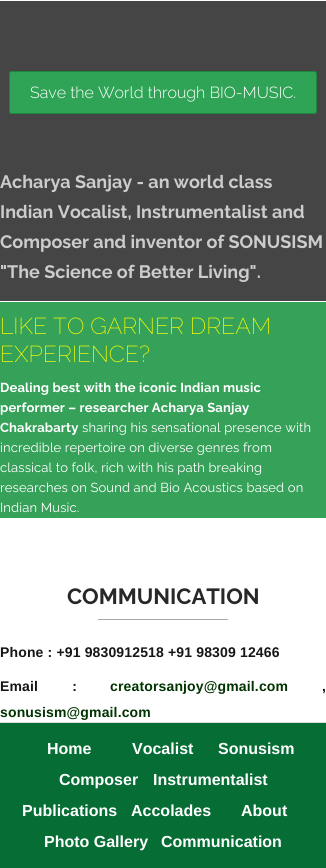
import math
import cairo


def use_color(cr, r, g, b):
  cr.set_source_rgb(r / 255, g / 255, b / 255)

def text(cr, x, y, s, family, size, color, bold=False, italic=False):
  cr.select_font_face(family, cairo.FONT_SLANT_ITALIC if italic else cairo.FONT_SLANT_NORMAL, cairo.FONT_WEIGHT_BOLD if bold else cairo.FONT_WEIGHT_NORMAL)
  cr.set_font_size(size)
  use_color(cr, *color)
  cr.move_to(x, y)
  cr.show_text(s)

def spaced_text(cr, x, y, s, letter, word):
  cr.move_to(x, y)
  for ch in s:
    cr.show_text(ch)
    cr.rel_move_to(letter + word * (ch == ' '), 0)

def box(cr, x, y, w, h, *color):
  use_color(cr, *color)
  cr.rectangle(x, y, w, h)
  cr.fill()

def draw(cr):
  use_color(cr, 255, 255, 255)
  cr.paint()
  box(cr, 0, 1, 326, 300, 69, 69, 69)
  use_color(cr, 48, 164, 86)
  cr.new_path()
  cr.move_to(12, 71)
  cr.line_to(98, 71)
  cr.line_to(98, 114)
  cr.line_to(12, 114)
  cr.curve_to(10.5, 114, 9, 112.5, 9, 111)
  cr.line_to(9, 74)
  cr.curve_to(9, 72.5, 10.5, 71, 12, 71)
  cr.close_path()
  cr.fill()
  use_color(cr, 28, 134, 63)
  cr.set_fill_rule(cairo.FILL_RULE_EVEN_ODD)
  cr.new_path()
  cr.move_to(12, 71)
  cr.line_to(98, 71)
  cr.line_to(98, 114)
  cr.line_to(12, 114)
  cr.curve_to(10, 114, 9, 113, 9, 111)
  cr.line_to(9, 74)
  cr.curve_to(9, 72, 10, 71, 12, 71)
  cr.close_path()
  cr.move_to(12, 72)
  cr.line_to(98, 72)
  cr.line_to(98, 113)
  cr.line_to(12, 113)
  cr.curve_to(11, 113, 10, 112, 10, 111)
  cr.line_to(10, 74)
  cr.curve_to(10, 73, 11, 72, 12, 72)
  cr.close_path()
  cr.fill()
  box(cr, 98, 72, 111, 41, 48, 164, 86)
  box(cr, 98, 71, 111, 1, 28, 134, 63)
  box(cr, 98, 113, 111, 1, 28, 134, 63)
  use_color(cr, 48, 164, 86)
  cr.new_path()
  cr.move_to(209, 71)
  cr.line_to(314, 71)
  cr.curve_to(315.5, 71, 317, 72.5, 317, 74)
  cr.line_to(317, 111)
  cr.curve_to(317, 112.5, 315.5, 114, 314, 114)
  cr.line_to(209, 114)
  cr.close_path()
  cr.fill()
  use_color(cr, 28, 134, 63)
  cr.new_path()
  cr.move_to(209, 71)
  cr.line_to(314, 71)
  cr.curve_to(316, 71, 317, 72, 317, 74)
  cr.line_to(317, 111)
  cr.curve_to(317, 113, 316, 114, 314, 114)
  cr.line_to(209, 114)
  cr.close_path()
  cr.move_to(209, 72)
  cr.line_to(314, 72)
  cr.curve_to(315, 72, 316, 73, 316, 74)
  cr.line_to(316, 111)
  cr.curve_to(316, 112, 315, 113, 314, 113)
  cr.line_to(209, 113)
  cr.close_path()
  cr.fill()
  box(cr, 0, 302, 326, 216, 54, 161, 89)
  box(cr, 98, 619, 130, 1, 167, 167, 167)
  box(cr, 0, 723, 326, 145, 6, 109, 52)
  box(cr, 0, 722, 326, 1, 221, 221, 221)
  text(cr, 30, 98, "Save the World through BIO-MUSIC.", "Raleway Light", 16, (255, 255, 255))
  text(cr, 0, 188, "Acharya Sanjay - an world class", "Raleway", 18, (204, 204, 204), bold=True)
  text(cr, 0, 218, "Indian Vocalist, Instrumentalist and", "Raleway", 18, (204, 204, 204), bold=True)
  text(cr, 0, 248, "Composer and inventor of SONUSISM", "Raleway", 18, (204, 204, 204), bold=True)
  text(cr, 0, 278, "\"The Science of Better Living\".", "Raleway", 18, (204, 204, 204), bold=True)
  text(cr, 0, 334, "LIKE TO GARNER DREAM", "Raleway ExtraLight", 23, (255, 255, 0))
  text(cr, 0, 362, "EXPERIENCE?", "Raleway ExtraLight", 23, (255, 255, 0))
  cr.select_font_face("Raleway", cairo.FONT_SLANT_NORMAL, cairo.FONT_WEIGHT_BOLD)
  cr.set_font_size(13)
  use_color(cr, 255, 255, 255)
  spaced_text(cr, 0, 392, "Dealing best with the iconic Indian music", 0.15, 0)
  spaced_text(cr, 0, 412, "performer – researcher Acharya Sanjay", 0.15, 0)
  spaced_text(cr, 0, 432, "Chakrabarty", 0.15, 0)
  cr.select_font_face("Raleway")
  spaced_text(cr, 82, 432, "sharing his sensational presence with", 0.15, 0)
  spaced_text(cr, 0, 452, "incredible repertoire on diverse genres from", 0.15, 0)
  spaced_text(cr, 0, 472, "classical to folk, rich with his path breaking", 0.15, 0)
  spaced_text(cr, 0, 492, "researches on Sound and Bio Acoustics based on", 0.15, 0)
  spaced_text(cr, 0, 512, "Indian Music.", 0.15, 0)
  text(cr, 67, 604, "COMMUNICATION", "Raleway", 22, (40, 40, 40), bold=True)
  cr.select_font_face("Liberation Sans", cairo.FONT_SLANT_NORMAL, cairo.FONT_WEIGHT_BOLD)
  cr.set_font_size(14)
  use_color(cr, 22, 22, 22)
  spaced_text(cr, 0, 657, "Phone : +91 9830912518 +91 98309 12466", 0.15, 0)
  spaced_text(cr, 0, 691, "Email :", 0.15, 30)
  use_color(cr, 0, 51, 0)
  spaced_text(cr, 110, 691, "creatorsanjoy@gmail.com", 0.15, 0)
  use_color(cr, 22, 22, 22)
  spaced_text(cr, 322, 691, ",", 0.15, 0)
  use_color(cr, 0, 51, 0)
  spaced_text(cr, 0, 717, "sonusism@gmail.com", 0.15, 0)
  text(cr, 47, 754, "Home", "Liberation Sans", 16, (255, 255, 255), bold=True)
  text(cr, 132, 754, "Vocalist", "Liberation Sans", 16, (255, 255, 255), bold=True)
  text(cr, 218, 754, "Sonusism", "Liberation Sans", 16, (255, 255, 255), bold=True)
  text(cr, 59, 785, "Composer", "Liberation Sans", 16, (255, 255, 255), bold=True)
  text(cr, 153, 785, "Instrumentalist", "Liberation Sans", 16, (255, 255, 255), bold=True)
  text(cr, 22, 816, "Publications", "Liberation Sans", 16, (255, 255, 255), bold=True)
  text(cr, 131, 816, "Accolades", "Liberation Sans", 16, (255, 255, 255), bold=True)
  text(cr, 241, 816, "About", "Liberation Sans", 16, (255, 255, 255), bold=True)
  text(cr, 44, 847, "Photo Gallery", "Liberation Sans", 16, (255, 255, 255), bold=True)
  text(cr, 161, 847, "Communication", "Liberation Sans", 16, (255, 255, 255), bold=True)


surface = cairo.ImageSurface(cairo.FORMAT_RGB24, 326, 868)
cr = cairo.Context(surface)
options = cairo.FontOptions()
options.set_hint_metrics(cairo.HINT_METRICS_OFF)
options.set_hint_style(cairo.HINT_STYLE_NONE)
cr.set_font_options(options)
cr.set_miter_limit(4)
draw(cr)
surface.write_to_png("out.png")
